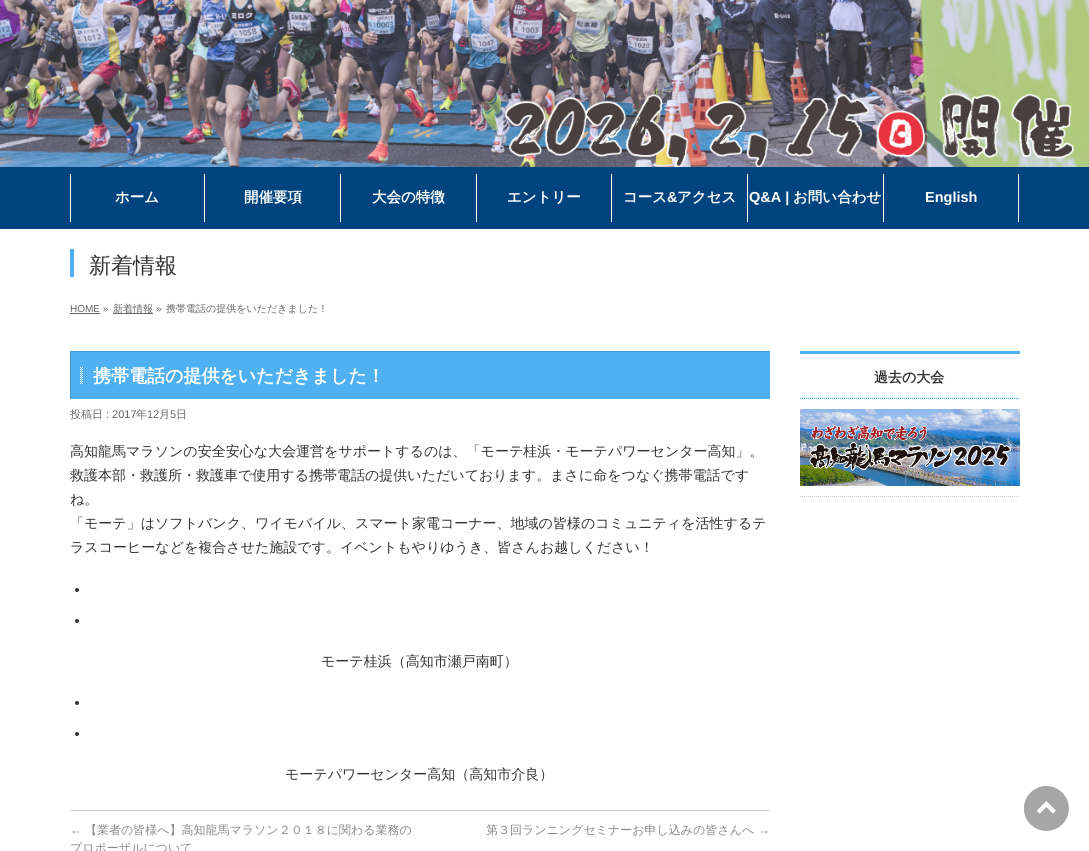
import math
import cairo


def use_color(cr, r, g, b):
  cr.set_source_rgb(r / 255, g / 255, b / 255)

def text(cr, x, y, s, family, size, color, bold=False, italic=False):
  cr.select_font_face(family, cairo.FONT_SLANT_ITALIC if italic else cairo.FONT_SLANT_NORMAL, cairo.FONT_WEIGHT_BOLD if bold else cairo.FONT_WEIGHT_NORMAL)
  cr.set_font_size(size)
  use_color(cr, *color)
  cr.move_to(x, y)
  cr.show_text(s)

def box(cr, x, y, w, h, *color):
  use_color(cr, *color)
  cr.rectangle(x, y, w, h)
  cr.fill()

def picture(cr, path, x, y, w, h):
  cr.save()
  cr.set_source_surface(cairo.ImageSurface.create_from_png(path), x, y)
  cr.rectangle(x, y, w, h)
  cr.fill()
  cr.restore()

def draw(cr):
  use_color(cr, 255, 255, 255)
  cr.paint()
  picture(cr, "img_01.png", 0, 0, 1089, 167)
  box(cr, 0, 167, 1089, 62, 0, 68, 127)
  box(cr, 204, 174, 1, 48, 255, 255, 255)
  box(cr, 70, 174, 1, 48, 255, 255, 255)
  box(cr, 340, 174, 1, 48, 255, 255, 255)
  box(cr, 476, 174, 1, 48, 255, 255, 255)
  box(cr, 611, 174, 1, 48, 255, 255, 255)
  box(cr, 747, 174, 1, 48, 255, 255, 255)
  box(cr, 883, 174, 1, 48, 255, 255, 255)
  box(cr, 1018, 174, 1, 48, 255, 255, 255)
  box(cr, 70, 249, 4, 28, 79, 177, 242)
  box(cr, 70, 313, 30, 1, 102, 102, 102)
  box(cr, 113, 313, 40, 1, 102, 102, 102)
  box(cr, 71, 352, 699, 47, 79, 177, 242)
  picture(cr, "img_02.png", 80, 367, 3, 17)
  cr.save()
  cr.rectangle(70, 351, 700, 48)
  cr.clip()
  use_color(cr, 67, 150, 206)
  cr.set_fill_rule(cairo.FILL_RULE_EVEN_ODD)
  cr.new_path()
  cr.move_to(-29, 252)
  cr.line_to(869, 252)
  cr.line_to(869, 498)
  cr.line_to(-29, 498)
  cr.close_path()
  cr.move_to(71, 352)
  cr.line_to(771, 352)
  cr.line_to(771, 400)
  cr.line_to(71, 400)
  cr.close_path()
  cr.fill()
  cr.restore()
  use_color(cr, 51, 51, 51)
  cr.arc(77, 590, 2, 0, 2 * math.pi)
  cr.fill()
  cr.arc(77, 621, 2, 0, 2 * math.pi)
  cr.fill()
  cr.arc(77, 703, 2, 0, 2 * math.pi)
  cr.fill()
  cr.arc(77, 734, 2, 0, 2 * math.pi)
  cr.fill()
  box(cr, 70, 810, 700, 1, 204, 204, 204)
  box(cr, 800, 351, 220, 3, 79, 177, 242)
  cr.new_path()
  cr.move_to(800, 398.5)
  cr.line_to(1020, 398.5)
  use_color(cr, 41, 161, 215)
  cr.set_line_width(1)
  cr.set_dash([1, 1])
  cr.stroke()
  cr.new_path()
  cr.move_to(800, 496.5)
  cr.line_to(1020, 496.5)
  use_color(cr, 204, 204, 204)
  cr.stroke()
  picture(cr, "img_03.png", 800, 409, 220, 77)
  picture(cr, "img_04.png", 1024, 786, 45, 45)
  text(cr, 115, 202, "ホーム", "WenQuanYi Zen Hei", 14.5, (255, 255, 255), bold=True)
  text(cr, 244, 202, "開催要項", "WenQuanYi Zen Hei", 14.5, (255, 255, 255), bold=True)
  text(cr, 372, 202, "大会の特徴", "WenQuanYi Zen Hei", 14.5, (255, 255, 255), bold=True)
  text(cr, 507, 202, "エントリー", "WenQuanYi Zen Hei", 14.5, (255, 255, 255), bold=True)
  text(cr, 623, 202, "コース", "WenQuanYi Zen Hei", 14.5, (255, 255, 255), bold=True)
  text(cr, 667, 202, "&", "Liberation Sans", 14.5, (255, 255, 255), bold=True)
  text(cr, 677, 202, "アクセス", "WenQuanYi Zen Hei", 14.5, (255, 255, 255), bold=True)
  text(cr, 749, 202, "Q&A |", "Liberation Sans", 14.5, (255, 255, 255), bold=True)
  text(cr, 793, 202, "お問い合わせ", "WenQuanYi Zen Hei", 14.5, (255, 255, 255), bold=True)
  text(cr, 925, 202, "English", "Liberation Sans", 14.5, (255, 255, 255), bold=True)
  text(cr, 89, 273, "新着情報", "WenQuanYi Zen Hei Medium", 22, (51, 51, 51))
  text(cr, 70, 312, "HOME »", "Liberation Sans", 10, (102, 102, 102))
  text(cr, 113, 312, "新着情報", "WenQuanYi Zen Hei Medium", 10, (102, 102, 102))
  text(cr, 156, 312, "»", "Liberation Sans", 10, (102, 102, 102))
  text(cr, 166, 312, "携帯電話の提供をいただきました！", "WenQuanYi Zen Hei Medium", 10, (102, 102, 102))
  text(cr, 93, 382, "携帯電話の提供をいただきました！", "WenQuanYi Zen Hei", 18, (255, 255, 255), bold=True)
  text(cr, 70, 418, "投稿日", "WenQuanYi Zen Hei Medium", 11, (102, 102, 102))
  text(cr, 106, 418, ": 2017", "Liberation Sans", 11, (102, 102, 102))
  text(cr, 136, 418, "年", "WenQuanYi Zen Hei Medium", 11, (102, 102, 102))
  text(cr, 147, 418, "12", "Liberation Sans", 11, (102, 102, 102))
  text(cr, 159, 418, "月", "WenQuanYi Zen Hei Medium", 11, (102, 102, 102))
  text(cr, 170, 418, "5", "Liberation Sans", 11, (102, 102, 102))
  text(cr, 176, 418, "日", "WenQuanYi Zen Hei Medium", 11, (102, 102, 102))
  text(cr, 70, 456, "高知龍馬マラソンの安全安心な大会運営をサポートするのは、「モーテ桂浜・モーテパワーセンター高知」。", "WenQuanYi Zen Hei Medium", 14, (51, 51, 51))
  cr.save()
  cr.rectangle(70, 440, 700, 345)
  cr.clip()
  text(cr, 70, 480, "救護本部・救護所・救護車で使用する携帯電話の提供いただいております。まさに命をつなぐ携帯電話です", "WenQuanYi Zen Hei Medium", 14, (51, 51, 51))
  cr.restore()
  text(cr, 70, 504, "ね。", "WenQuanYi Zen Hei Medium", 14, (51, 51, 51))
  text(cr, 70, 528, "「モーテ」はソフトバンク、ワイモバイル、スマート家電コーナー、地域の皆様のコミュニティを活性するテ", "WenQuanYi Zen Hei Medium", 14, (51, 51, 51))
  text(cr, 70, 552, "ラスコーヒーなどを複合させた施設です。イベントもやりゆうき、皆さんお越しください！", "WenQuanYi Zen Hei Medium", 14, (51, 51, 51))
  text(cr, 321, 666, "モーテ桂浜（高知市瀬戸南町）", "WenQuanYi Zen Hei Medium", 14, (51, 51, 51))
  text(cr, 285, 779, "モーテパワーセンター高知（高知市介良）", "WenQuanYi Zen Hei Medium", 14, (51, 51, 51))
  text(cr, 70, 834, "←", "Liberation Sans", 12, (136, 136, 136))
  text(cr, 85, 834, "【業者の皆様へ】高知龍馬マラソン２０１８に関わる業務の", "WenQuanYi Zen Hei Medium", 12, (136, 136, 136))
  text(cr, 70, 852, "プロポーザルについて", "WenQuanYi Zen Hei Medium", 12, (136, 136, 136))
  text(cr, 486, 834, "第３回ランニングセミナーお申し込みの皆さんへ", "WenQuanYi Zen Hei Medium", 12, (136, 136, 136))
  text(cr, 758, 834, "→", "Liberation Sans", 12, (136, 136, 136))
  text(cr, 874, 382, "過去の大会", "WenQuanYi Zen Hei", 14, (51, 51, 51), bold=True)


surface = cairo.ImageSurface(cairo.FORMAT_RGB24, 1089, 851)
cr = cairo.Context(surface)
options = cairo.FontOptions()
options.set_hint_metrics(cairo.HINT_METRICS_OFF)
options.set_hint_style(cairo.HINT_STYLE_NONE)
cr.set_font_options(options)
cr.set_miter_limit(4)
draw(cr)
surface.write_to_png("out.png")
